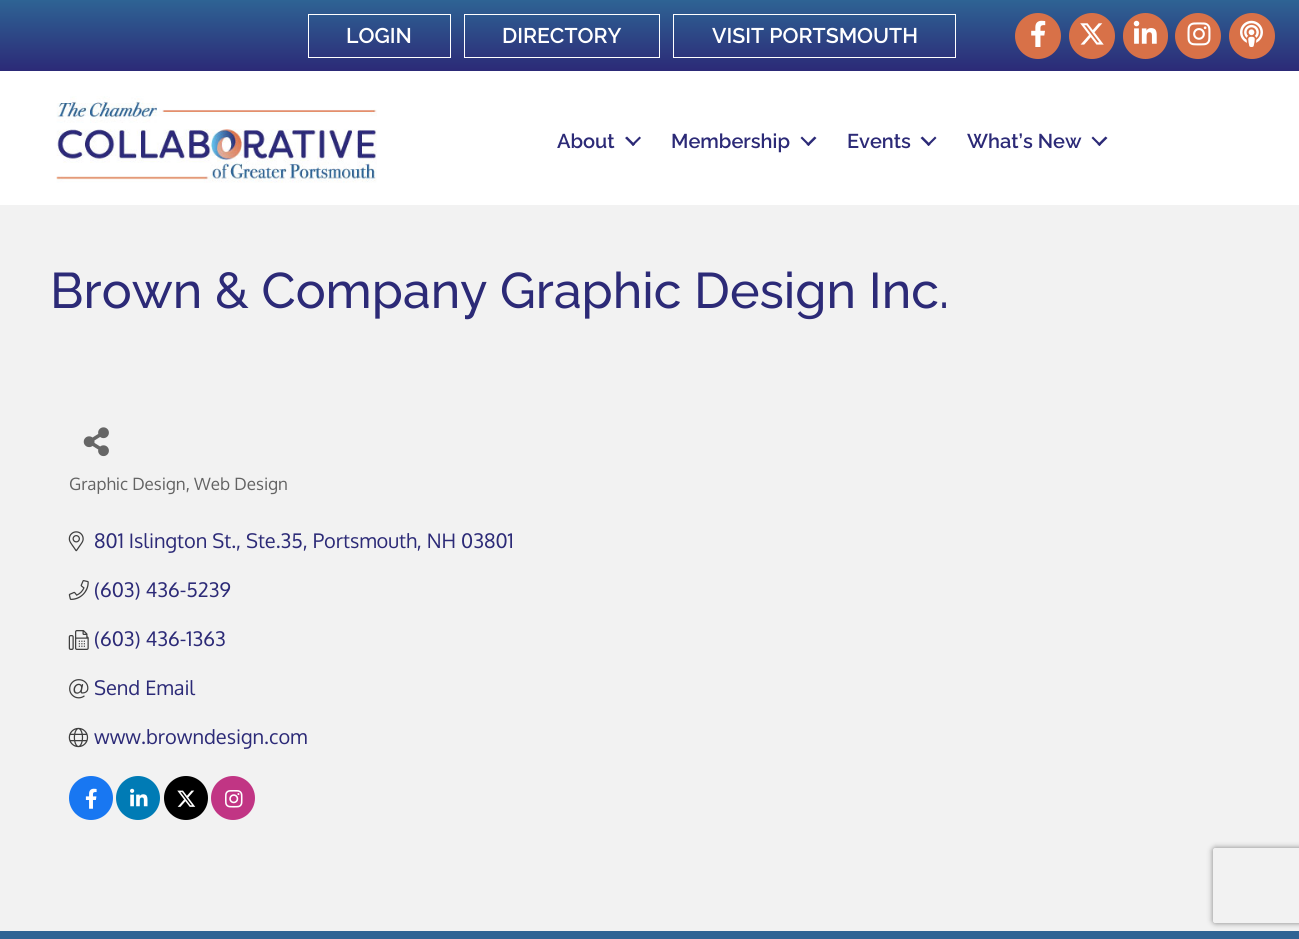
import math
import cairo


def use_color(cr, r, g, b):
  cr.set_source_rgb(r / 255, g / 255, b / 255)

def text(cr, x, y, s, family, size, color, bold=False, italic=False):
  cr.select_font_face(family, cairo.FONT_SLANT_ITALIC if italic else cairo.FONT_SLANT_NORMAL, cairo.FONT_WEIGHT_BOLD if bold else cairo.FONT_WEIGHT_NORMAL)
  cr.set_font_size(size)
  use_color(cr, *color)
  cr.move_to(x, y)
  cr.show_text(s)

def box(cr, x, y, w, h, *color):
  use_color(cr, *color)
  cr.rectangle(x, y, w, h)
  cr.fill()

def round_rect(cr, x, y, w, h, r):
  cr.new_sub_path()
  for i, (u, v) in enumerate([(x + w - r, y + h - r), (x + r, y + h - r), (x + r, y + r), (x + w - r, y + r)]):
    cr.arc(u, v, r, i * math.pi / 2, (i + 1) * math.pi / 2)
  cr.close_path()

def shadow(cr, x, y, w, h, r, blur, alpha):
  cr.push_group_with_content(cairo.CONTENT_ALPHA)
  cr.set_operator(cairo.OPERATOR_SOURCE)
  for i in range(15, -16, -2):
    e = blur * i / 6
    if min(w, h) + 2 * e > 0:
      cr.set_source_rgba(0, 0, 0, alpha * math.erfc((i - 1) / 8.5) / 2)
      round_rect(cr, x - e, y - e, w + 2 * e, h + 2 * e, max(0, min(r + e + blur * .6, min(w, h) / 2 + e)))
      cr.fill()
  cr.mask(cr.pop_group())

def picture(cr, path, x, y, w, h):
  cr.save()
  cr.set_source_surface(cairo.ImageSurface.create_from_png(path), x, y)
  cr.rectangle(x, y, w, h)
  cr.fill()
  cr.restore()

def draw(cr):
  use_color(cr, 255, 255, 255)
  cr.paint()
  gradient = cairo.LinearGradient(650, 0, 650, 71)
  gradient.add_color_stop_rgba(0, 0.18, 0.388, 0.58, 1)
  gradient.add_color_stop_rgba(1, 0.173, 0.165, 0.467, 1)
  cr.set_source(gradient)
  cr.rectangle(0, 0, 1299, 71)
  cr.fill()
  cr.rectangle(308.5, 14.5, 142, 43)
  use_color(cr, 255, 255, 255)
  cr.set_line_width(1)
  cr.stroke()
  cr.rectangle(464.5, 14.5, 195, 43)
  cr.stroke()
  cr.rectangle(673.5, 14.5, 282, 43)
  cr.stroke()
  use_color(cr, 216, 113, 72)
  cr.arc(1038, 36, 23, 0, 2 * math.pi)
  cr.fill()
  picture(cr, "img_01.png", 1031, 20, 15, 27)
  cr.arc(1092, 36, 23, 0, 2 * math.pi)
  cr.fill()
  picture(cr, "img_02.png", 1080, 23, 24, 22)
  round_rect(cr, 1123, 13, 45, 46, 22.5)
  cr.fill()
  picture(cr, "img_03.png", 1133, 20, 24, 24)
  cr.arc(1198, 36, 23, 0, 2 * math.pi)
  cr.fill()
  picture(cr, "img_04.png", 1187, 22, 24, 24)
  cr.arc(1252, 36, 23, 0, 2 * math.pi)
  cr.fill()
  picture(cr, "img_05.png", 1240, 20, 23, 27)
  picture(cr, "img_06.png", 56, 96, 321, 87)
  use_color(cr, 44, 42, 119)
  cr.new_path()
  cr.move_to(639.5, 136.5)
  cr.line_to(641, 138)
  cr.line_to(633, 146)
  cr.line_to(631.5, 144.5)
  cr.close_path()
  cr.fill()
  cr.new_path()
  cr.move_to(627, 136.5)
  cr.line_to(635, 144.5)
  cr.line_to(633, 146)
  cr.line_to(625, 138)
  cr.close_path()
  cr.fill()
  cr.new_path()
  cr.move_to(814.5, 136.5)
  cr.line_to(816.5, 138)
  cr.line_to(808.5, 146)
  cr.line_to(806.5, 144.5)
  cr.close_path()
  cr.fill()
  cr.new_path()
  cr.move_to(802, 136.5)
  cr.line_to(810, 144.5)
  cr.line_to(808.5, 146)
  cr.line_to(800.5, 138)
  cr.close_path()
  cr.fill()
  cr.new_path()
  cr.move_to(935, 136.5)
  cr.line_to(936.5, 138)
  cr.line_to(928.5, 146)
  cr.line_to(927, 144.5)
  cr.close_path()
  cr.fill()
  cr.new_path()
  cr.move_to(922.5, 136.5)
  cr.line_to(930.5, 144.5)
  cr.line_to(928.5, 146)
  cr.line_to(920.5, 138)
  cr.close_path()
  cr.fill()
  cr.new_path()
  cr.move_to(1105.5, 136.5)
  cr.line_to(1107.5, 138)
  cr.line_to(1099.5, 146)
  cr.line_to(1097.5, 144.5)
  cr.close_path()
  cr.fill()
  cr.new_path()
  cr.move_to(1093, 136.5)
  cr.line_to(1101, 144.5)
  cr.line_to(1099.5, 146)
  cr.line_to(1091.5, 138)
  cr.close_path()
  cr.fill()
  box(cr, 0, 205, 1299, 726, 242, 242, 242)
  picture(cr, "img_07.png", 83, 427, 26, 30)
  picture(cr, "img_08.png", 68, 531, 16, 21)
  picture(cr, "img_09.png", 68, 580, 21, 20)
  picture(cr, "img_10.png", 68, 630, 21, 20)
  picture(cr, "img_11.png", 69, 679, 20, 20)
  picture(cr, "img_12.png", 68, 727, 21, 21)
  use_color(cr, 24, 119, 242)
  cr.arc(91, 798, 22, 0, 2 * math.pi)
  cr.fill()
  picture(cr, "img_13.png", 85, 788, 12, 21)
  use_color(cr, 0, 123, 181)
  cr.arc(138, 798, 22, 0, 2 * math.pi)
  cr.fill()
  picture(cr, "img_14.png", 130, 788, 18, 19)
  use_color(cr, 0, 0, 0)
  cr.arc(186, 798, 22, 0, 2 * math.pi)
  cr.fill()
  picture(cr, "img_15.png", 177, 790, 19, 17)
  use_color(cr, 193, 53, 132)
  cr.arc(233, 798, 22, 0, 2 * math.pi)
  cr.fill()
  picture(cr, "img_16.png", 225, 790, 18, 18)
  box(cr, 0, 931, 1299, 8, 46, 99, 148)
  cr.save()
  cr.set_fill_rule(cairo.FILL_RULE_EVEN_ODD)
  cr.new_path()
  cr.move_to(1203, 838)
  cr.line_to(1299, 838)
  cr.line_to(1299, 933)
  cr.line_to(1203, 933)
  cr.close_path()
  cr.move_to(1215.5, 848)
  cr.line_to(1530.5, 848)
  cr.curve_to(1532, 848, 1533, 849, 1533, 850.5)
  cr.line_to(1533, 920.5)
  cr.curve_to(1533, 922, 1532, 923, 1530.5, 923)
  cr.line_to(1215.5, 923)
  cr.curve_to(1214, 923, 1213, 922, 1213, 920.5)
  cr.line_to(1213, 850.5)
  cr.curve_to(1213, 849, 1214, 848, 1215.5, 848)
  cr.close_path()
  cr.clip()
  use_color(cr, 128, 128, 128)
  shadow(cr, 1213, 848, 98, 75, 2.5, 3, 1)
  cr.restore()
  text(cr, 346, 43, "LOGIN", "Raleway SemiBold", 21.25, (255, 255, 255))
  text(cr, 502, 43, "DIRECTORY", "Raleway SemiBold", 21.25, (255, 255, 255))
  text(cr, 712, 43, "VISIT PORTSMOUTH", "Raleway SemiBold", 21.25, (255, 255, 255))
  text(cr, 557, 148, "About", "Raleway SemiBold", 20, (44, 42, 119))
  text(cr, 671, 148, "Membership", "Raleway SemiBold", 20, (44, 42, 119))
  text(cr, 847, 148, "Events", "Raleway SemiBold", 20, (44, 42, 119))
  text(cr, 967, 148, "What’s New", "Raleway SemiBold", 20, (44, 42, 119))
  text(cr, 50, 308, "Brown & Company Graphic Design Inc.", "Raleway Medium", 50, (44, 42, 119))
  text(cr, 69, 490, "Graphic Design, Web Design", "Oxygen", 17, (99, 99, 99))
  text(cr, 94, 548, "801 Islington St., Ste.35, Portsmouth, NH 03801", "Oxygen", 20, (44, 42, 119))
  text(cr, 94, 597, "(603) 436-5239", "Oxygen", 20, (44, 42, 119))
  text(cr, 94, 646, "(603) 436-1363", "Oxygen", 20, (44, 42, 119))
  text(cr, 94, 695, "Send Email", "Oxygen", 20, (44, 42, 119))
  text(cr, 94, 744, "www.browndesign.com", "Oxygen", 20, (44, 42, 119))


surface = cairo.ImageSurface(cairo.FORMAT_RGB24, 1299, 939)
cr = cairo.Context(surface)
options = cairo.FontOptions()
options.set_hint_metrics(cairo.HINT_METRICS_OFF)
options.set_hint_style(cairo.HINT_STYLE_NONE)
cr.set_font_options(options)
cr.set_miter_limit(4)
draw(cr)
surface.write_to_png("out.png")
